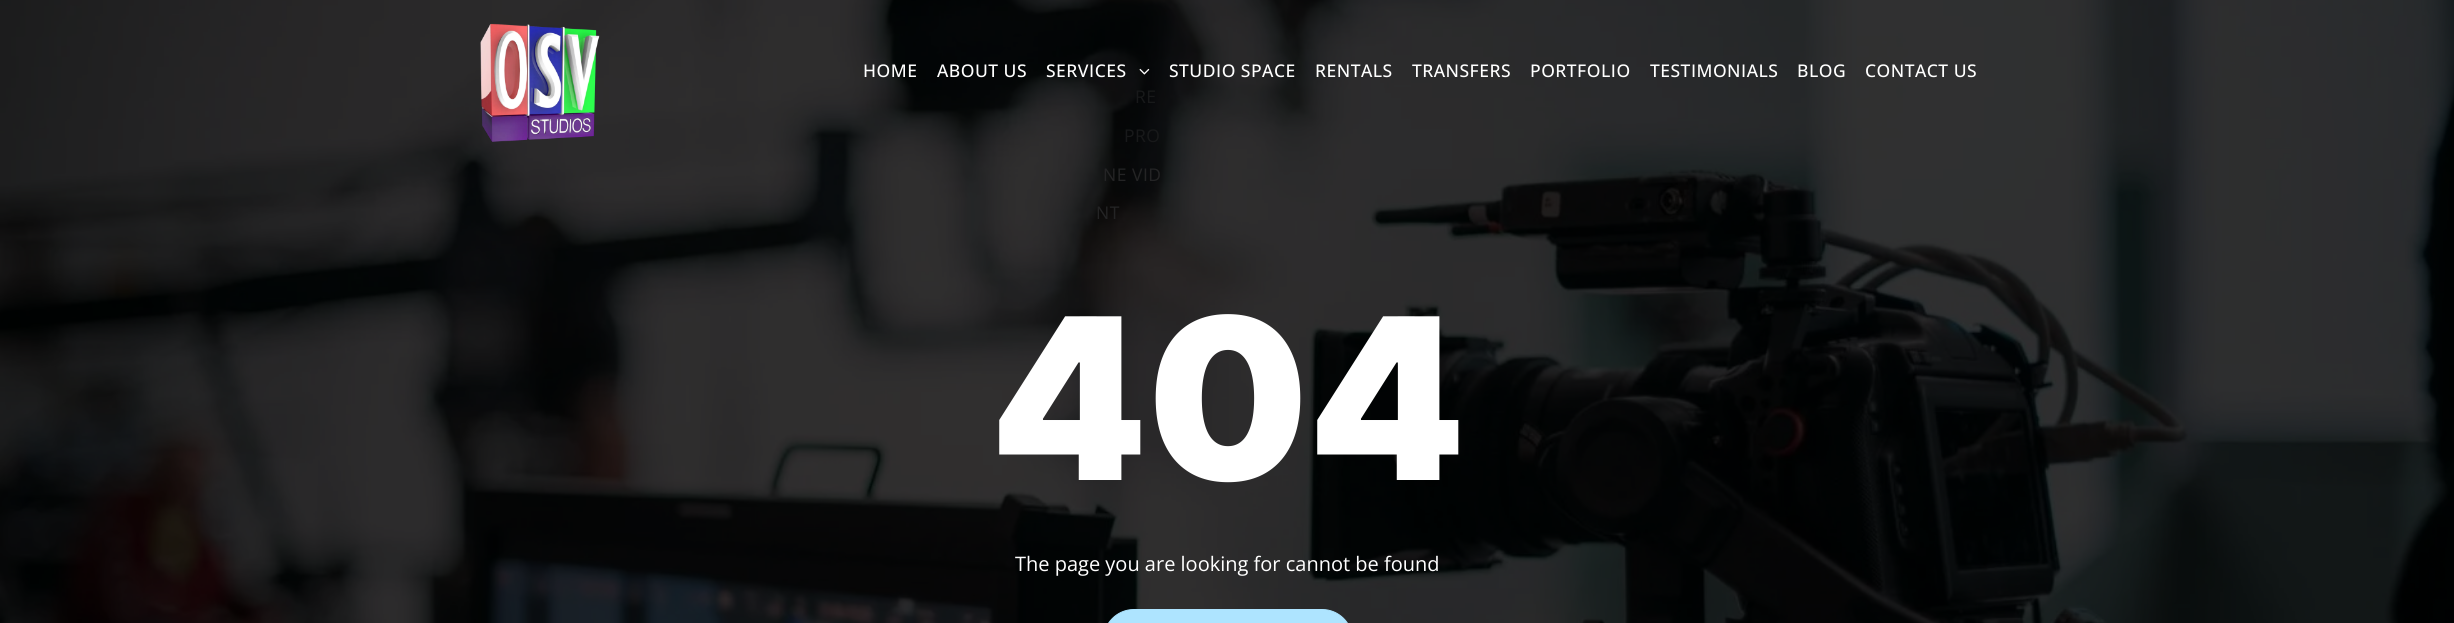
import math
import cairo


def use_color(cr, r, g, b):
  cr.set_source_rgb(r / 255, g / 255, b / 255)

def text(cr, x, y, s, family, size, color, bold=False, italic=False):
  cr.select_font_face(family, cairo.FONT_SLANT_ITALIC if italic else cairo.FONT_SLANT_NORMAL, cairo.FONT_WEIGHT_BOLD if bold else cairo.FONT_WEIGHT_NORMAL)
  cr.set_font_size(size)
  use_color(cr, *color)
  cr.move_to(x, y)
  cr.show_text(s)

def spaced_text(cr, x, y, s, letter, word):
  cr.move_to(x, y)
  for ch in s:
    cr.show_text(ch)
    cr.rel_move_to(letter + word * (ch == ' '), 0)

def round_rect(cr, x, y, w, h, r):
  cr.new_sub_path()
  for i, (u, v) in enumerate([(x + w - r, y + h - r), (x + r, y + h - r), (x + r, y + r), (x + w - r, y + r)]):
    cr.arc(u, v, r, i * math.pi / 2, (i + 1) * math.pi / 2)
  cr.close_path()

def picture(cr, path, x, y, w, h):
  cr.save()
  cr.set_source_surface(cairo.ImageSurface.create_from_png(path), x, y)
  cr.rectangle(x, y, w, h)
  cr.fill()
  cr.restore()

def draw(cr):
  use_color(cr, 255, 255, 255)
  cr.paint()
  picture(cr, "img_03.png", 0, 0, 2454, 623)
  picture(cr, "img_01.png", 480, 23, 120, 119)
  picture(cr, "img_02.png", 1139, 68, 11, 7)
  use_color(cr, 174, 228, 255)
  round_rect(cr, 1103.5, 609.5, 249, 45, 30.5)
  cr.fill_preserve()
  cr.set_line_width(1)
  cr.stroke()
  cr.select_font_face("Open Sans Medium")
  cr.set_font_size(17.5)
  use_color(cr, 255, 255, 255)
  spaced_text(cr, 863, 77, "HOME", 0.5, 0)
  spaced_text(cr, 937, 77, "ABOUT US", 0.5, 0)
  spaced_text(cr, 1046, 77, "SERVICES", 0.5, 0)
  cr.select_font_face("Open Sans")
  use_color(cr, 24, 25, 26)
  spaced_text(cr, 1135, 103, "RE", 0.5, 0)
  spaced_text(cr, 1124, 142, "PRO", 0.5, 0)
  use_color(cr, 36, 36, 37)
  spaced_text(cr, 1103, 181, "NE VID", 0.5, 0)
  spaced_text(cr, 1096, 219, "NT", 0.5, 0)
  cr.select_font_face("Open Sans Medium")
  use_color(cr, 255, 255, 255)
  spaced_text(cr, 1169, 77, "STUDIO SPACE", 0.5, 0)
  spaced_text(cr, 1315, 77, "RENTALS", 0.5, 0)
  spaced_text(cr, 1412, 77, "TRANSFERS", 0.5, 0)
  spaced_text(cr, 1530, 77, "PORTFOLIO", 0.5, 0)
  spaced_text(cr, 1650, 77, "TESTIMONIALS", 0.5, 0)
  spaced_text(cr, 1797, 77, "BLOG", 0.5, 0)
  spaced_text(cr, 1865, 77, "CONTACT US", 0.5, 0)
  text(cr, 990, 480, "404", "Inter Black", 225, (255, 255, 255))
  text(cr, 1015, 571, "The page you are looking for cannot be found", "Open Sans", 20, (255, 255, 255))


surface = cairo.ImageSurface(cairo.FORMAT_RGB24, 2454, 623)
cr = cairo.Context(surface)
options = cairo.FontOptions()
options.set_hint_metrics(cairo.HINT_METRICS_OFF)
options.set_hint_style(cairo.HINT_STYLE_NONE)
cr.set_font_options(options)
cr.set_miter_limit(4)
draw(cr)
surface.write_to_png("out.png")
